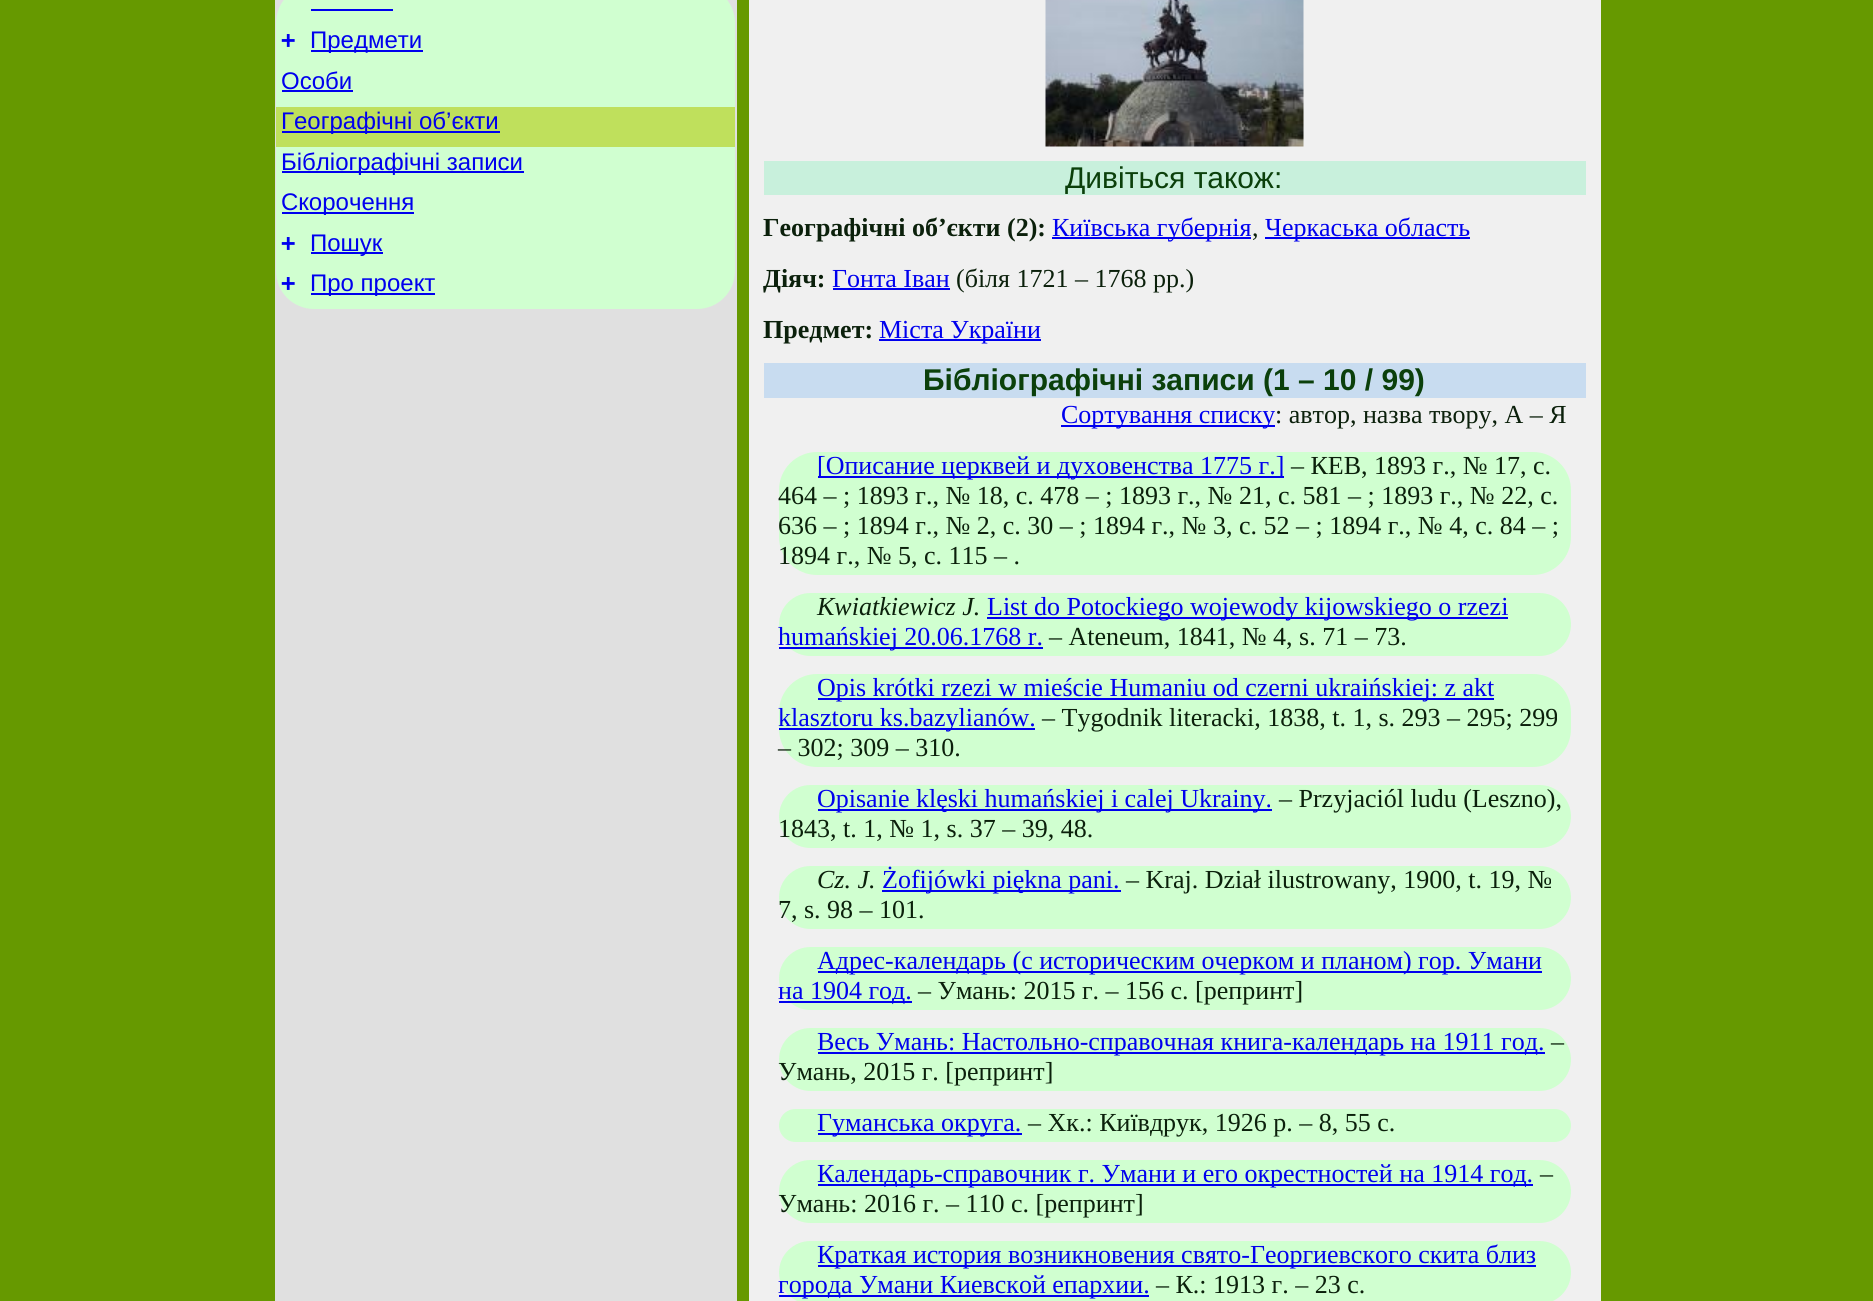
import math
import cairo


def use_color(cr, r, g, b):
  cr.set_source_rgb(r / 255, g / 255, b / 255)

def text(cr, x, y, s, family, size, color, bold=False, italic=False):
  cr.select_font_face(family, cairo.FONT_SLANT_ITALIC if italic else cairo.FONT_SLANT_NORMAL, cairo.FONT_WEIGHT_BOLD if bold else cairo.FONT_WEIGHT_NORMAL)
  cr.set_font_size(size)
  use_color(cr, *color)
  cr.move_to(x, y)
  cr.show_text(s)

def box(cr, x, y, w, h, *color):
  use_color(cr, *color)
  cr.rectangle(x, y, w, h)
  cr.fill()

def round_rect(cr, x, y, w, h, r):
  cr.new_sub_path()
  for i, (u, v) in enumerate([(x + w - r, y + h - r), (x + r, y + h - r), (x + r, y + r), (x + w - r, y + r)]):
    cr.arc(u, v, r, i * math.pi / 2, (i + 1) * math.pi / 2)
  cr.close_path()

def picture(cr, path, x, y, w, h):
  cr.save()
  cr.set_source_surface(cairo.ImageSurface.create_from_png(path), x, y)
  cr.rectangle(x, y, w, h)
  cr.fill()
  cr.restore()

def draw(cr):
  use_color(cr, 102, 153, 0)
  cr.paint()
  box(cr, 275, 0, 462, 1301, 224, 224, 224)
  use_color(cr, 208, 255, 208)
  round_rect(cr, 276, -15, 459, 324, 38)
  cr.fill()
  box(cr, 311, 9, 82, 2, 0, 0, 238)
  box(cr, 311, 50, 112, 2, 0, 0, 238)
  box(cr, 282, 90, 71, 2, 0, 0, 238)
  box(cr, 276, 107, 459, 40, 191, 224, 92)
  box(cr, 282, 131, 218, 2, 0, 0, 238)
  box(cr, 282, 171, 242, 2, 0, 0, 238)
  box(cr, 282, 212, 132, 2, 0, 0, 238)
  box(cr, 311, 252, 72, 2, 0, 0, 238)
  box(cr, 311, 293, 124, 2, 0, 0, 238)
  box(cr, 749, 0, 852, 1301, 240, 240, 240)
  picture(cr, "img_01.png", 1045, 0, 259, 147)
  box(cr, 764, 161, 822, 34, 200, 240, 220)
  box(cr, 1052, 237, 199, 2, 0, 0, 238)
  box(cr, 1265, 237, 205, 2, 0, 0, 238)
  box(cr, 833, 288, 117, 2, 0, 0, 238)
  box(cr, 879, 339, 162, 2, 0, 0, 238)
  box(cr, 764, 363, 822, 35, 200, 220, 240)
  box(cr, 1061, 425, 214, 2, 0, 0, 238)
  use_color(cr, 208, 255, 208)
  round_rect(cr, 779, 452, 792, 123, 38)
  cr.fill()
  box(cr, 818, 476, 466, 2, 0, 0, 238)
  use_color(cr, 208, 255, 208)
  round_rect(cr, 779, 593, 792, 63, 31.5)
  cr.fill()
  box(cr, 987, 617, 521, 2, 0, 0, 238)
  box(cr, 779, 647, 264, 2, 0, 0, 238)
  use_color(cr, 208, 255, 208)
  round_rect(cr, 779, 674, 792, 93, 38)
  cr.fill()
  box(cr, 818, 698, 676, 2, 0, 0, 238)
  box(cr, 779, 728, 256, 2, 0, 0, 238)
  use_color(cr, 208, 255, 208)
  round_rect(cr, 779, 785, 792, 63, 31.5)
  cr.fill()
  box(cr, 818, 809, 454, 2, 0, 0, 238)
  use_color(cr, 208, 255, 208)
  round_rect(cr, 779, 866, 792, 63, 31.5)
  cr.fill()
  box(cr, 882, 890, 239, 2, 0, 0, 238)
  use_color(cr, 208, 255, 208)
  round_rect(cr, 779, 947, 792, 63, 31.5)
  cr.fill()
  box(cr, 818, 971, 724, 2, 0, 0, 238)
  box(cr, 779, 1001, 133, 2, 0, 0, 238)
  use_color(cr, 208, 255, 208)
  round_rect(cr, 779, 1028, 792, 63, 31.5)
  cr.fill()
  box(cr, 818, 1052, 727, 2, 0, 0, 238)
  use_color(cr, 208, 255, 208)
  round_rect(cr, 779, 1109, 792, 33, 16.5)
  cr.fill()
  box(cr, 818, 1133, 204, 2, 0, 0, 238)
  use_color(cr, 208, 255, 208)
  round_rect(cr, 779, 1160, 792, 63, 31.5)
  cr.fill()
  box(cr, 818, 1184, 715, 2, 0, 0, 238)
  use_color(cr, 208, 255, 208)
  round_rect(cr, 779, 1241, 792, 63, 31.5)
  cr.fill()
  box(cr, 818, 1265, 718, 2, 0, 0, 238)
  box(cr, 779, 1295, 370, 2, 0, 0, 238)
  text(cr, 281, 48, "+", "DejaVu Sans Mono", 24, (0, 0, 238), bold=True)
  text(cr, 310, 48, "Предмети", "Liberation Sans", 24, (0, 0, 238))
  text(cr, 281, 89, "Особи", "Liberation Sans", 24, (0, 0, 238))
  text(cr, 281, 129, "Географічні об’єкти", "Liberation Sans", 24, (0, 0, 238))
  text(cr, 281, 170, "Бібліографічні записи", "Liberation Sans", 24, (0, 0, 238))
  text(cr, 281, 210, "Скорочення", "Liberation Sans", 24, (0, 0, 238))
  text(cr, 281, 251, "+", "DejaVu Sans Mono", 24, (0, 0, 238), bold=True)
  text(cr, 310, 251, "Пошук", "Liberation Sans", 24, (0, 0, 238))
  text(cr, 281, 291, "+", "DejaVu Sans Mono", 24, (0, 0, 238), bold=True)
  text(cr, 310, 291, "Про проект", "Liberation Sans", 24, (0, 0, 238))
  text(cr, 1065, 188, "Дивіться також:", "Liberation Sans", 30, (11, 64, 11))
  text(cr, 763, 236, "Географічні об’єкти (2):", "Liberation Serif", 26, (11, 32, 11), bold=True)
  text(cr, 1052, 236, "Київська губернія", "Liberation Serif", 26, (0, 0, 238))
  text(cr, 1252, 236, ",", "Liberation Serif", 26, (11, 32, 11))
  text(cr, 1265, 236, "Черкаська область", "Liberation Serif", 26, (0, 0, 238))
  text(cr, 763, 287, "Діяч:", "Liberation Serif", 26, (11, 32, 11), bold=True)
  text(cr, 832, 287, "Гонта Іван", "Liberation Serif", 26, (0, 0, 238))
  text(cr, 956, 287, "(біля 1721 – 1768 рр.)", "Liberation Serif", 26, (11, 32, 11))
  text(cr, 763, 338, "Предмет:", "Liberation Serif", 26, (11, 32, 11), bold=True)
  text(cr, 879, 338, "Міста України", "Liberation Serif", 26, (0, 0, 238))
  text(cr, 923, 390, "Бібліографічні записи (1 – 10 / 99)", "Liberation Sans", 30, (11, 64, 11), bold=True)
  text(cr, 1061, 423, "Сортування списку", "Liberation Serif", 26, (0, 0, 238))
  text(cr, 1275, 423, ": автор, назва твору, А – Я", "Liberation Serif", 26, (11, 32, 11))
  text(cr, 817, 474, "[Описание церквей и духовенства 1775 г.]", "Liberation Serif", 26, (0, 0, 238))
  text(cr, 1291, 474, "– КЕВ, 1893 г., № 17, с.", "Liberation Serif", 26, (11, 32, 11))
  text(cr, 778, 504, "464 – ; 1893 г., № 18, с. 478 – ; 1893 г., № 21, с. 581 – ; 1893 г., № 22, с.", "Liberation Serif", 26, (11, 32, 11))
  text(cr, 778, 534, "636 – ; 1894 г., № 2, с. 30 – ; 1894 г., № 3, с. 52 – ; 1894 г., № 4, с. 84 – ;", "Liberation Serif", 26, (11, 32, 11))
  text(cr, 778, 564, "1894 г., № 5, с. 115 – .", "Liberation Serif", 26, (11, 32, 11))
  text(cr, 817, 615, "Kwiatkiewicz J.", "Liberation Serif", 26, (11, 32, 11), italic=True)
  text(cr, 987, 615, "List do Potockiego wojewody kijowskiego o rzezi", "Liberation Serif", 26, (0, 0, 238))
  text(cr, 778, 645, "humańskiej 20.06.1768 r.", "Liberation Serif", 26, (0, 0, 238))
  text(cr, 1049, 645, "– Ateneum, 1841, № 4, s. 71 – 73.", "Liberation Serif", 26, (11, 32, 11))
  text(cr, 817, 696, "Opis krótki rzezi w mieście Humaniu od czerni ukraińskiej: z akt", "Liberation Serif", 26, (0, 0, 238))
  text(cr, 778, 726, "klasztoru ks.bazylianów.", "Liberation Serif", 26, (0, 0, 238))
  text(cr, 1042, 726, "– Tygodnik literacki, 1838, t. 1, s. 293 – 295; 299", "Liberation Serif", 26, (11, 32, 11))
  text(cr, 778, 756, "– 302; 309 – 310.", "Liberation Serif", 26, (11, 32, 11))
  text(cr, 817, 807, "Opisanie klęski humańskiej i calej Ukrainy.", "Liberation Serif", 26, (0, 0, 238))
  text(cr, 1279, 807, "– Przyjaciól ludu (Leszno),", "Liberation Serif", 26, (11, 32, 11))
  text(cr, 778, 837, "1843, t. 1, № 1, s. 37 – 39, 48.", "Liberation Serif", 26, (11, 32, 11))
  text(cr, 817, 888, "Cz. J.", "Liberation Serif", 26, (11, 32, 11), italic=True)
  text(cr, 882, 888, "Żofijówki piękna pani.", "Liberation Serif", 26, (0, 0, 238))
  text(cr, 1126, 888, "– Kraj. Dział ilustrowany, 1900, t. 19, №", "Liberation Serif", 26, (11, 32, 11))
  text(cr, 778, 918, "7, s. 98 – 101.", "Liberation Serif", 26, (11, 32, 11))
  text(cr, 817, 969, "Адрес-календарь (с историческим очерком и планом) гор. Умани", "Liberation Serif", 26, (0, 0, 238))
  text(cr, 778, 999, "на 1904 год.", "Liberation Serif", 26, (0, 0, 238))
  text(cr, 918, 999, "– Умань: 2015 г. – 156 с. [репринт]", "Liberation Serif", 26, (11, 32, 11))
  text(cr, 817, 1050, "Весь Умань: Настольно-справочная книга-календарь на 1911 год.", "Liberation Serif", 26, (0, 0, 238))
  text(cr, 1551, 1050, "–", "Liberation Serif", 26, (11, 32, 11))
  text(cr, 778, 1080, "Умань, 2015 г. [репринт]", "Liberation Serif", 26, (11, 32, 11))
  text(cr, 817, 1131, "Гуманська округа.", "Liberation Serif", 26, (0, 0, 238))
  text(cr, 1028, 1131, "– Хк.: Київдрук, 1926 р. – 8, 55 с.", "Liberation Serif", 26, (11, 32, 11))
  text(cr, 817, 1182, "Календарь-справочник г. Умани и его окрестностей на 1914 год.", "Liberation Serif", 26, (0, 0, 238))
  text(cr, 1540, 1182, "–", "Liberation Serif", 26, (11, 32, 11))
  text(cr, 778, 1212, "Умань: 2016 г. – 110 c. [репринт]", "Liberation Serif", 26, (11, 32, 11))
  text(cr, 817, 1263, "Краткая история возникновения свято-Георгиевского скита близ", "Liberation Serif", 26, (0, 0, 238))
  text(cr, 778, 1293, "города Умани Киевской епархии.", "Liberation Serif", 26, (0, 0, 238))
  text(cr, 1156, 1293, "– К.: 1913 г. – 23 с.", "Liberation Serif", 26, (11, 32, 11))


surface = cairo.ImageSurface(cairo.FORMAT_RGB24, 1873, 1301)
cr = cairo.Context(surface)
options = cairo.FontOptions()
options.set_hint_metrics(cairo.HINT_METRICS_OFF)
options.set_hint_style(cairo.HINT_STYLE_NONE)
cr.set_font_options(options)
cr.set_miter_limit(4)
draw(cr)
surface.write_to_png("out.png")
